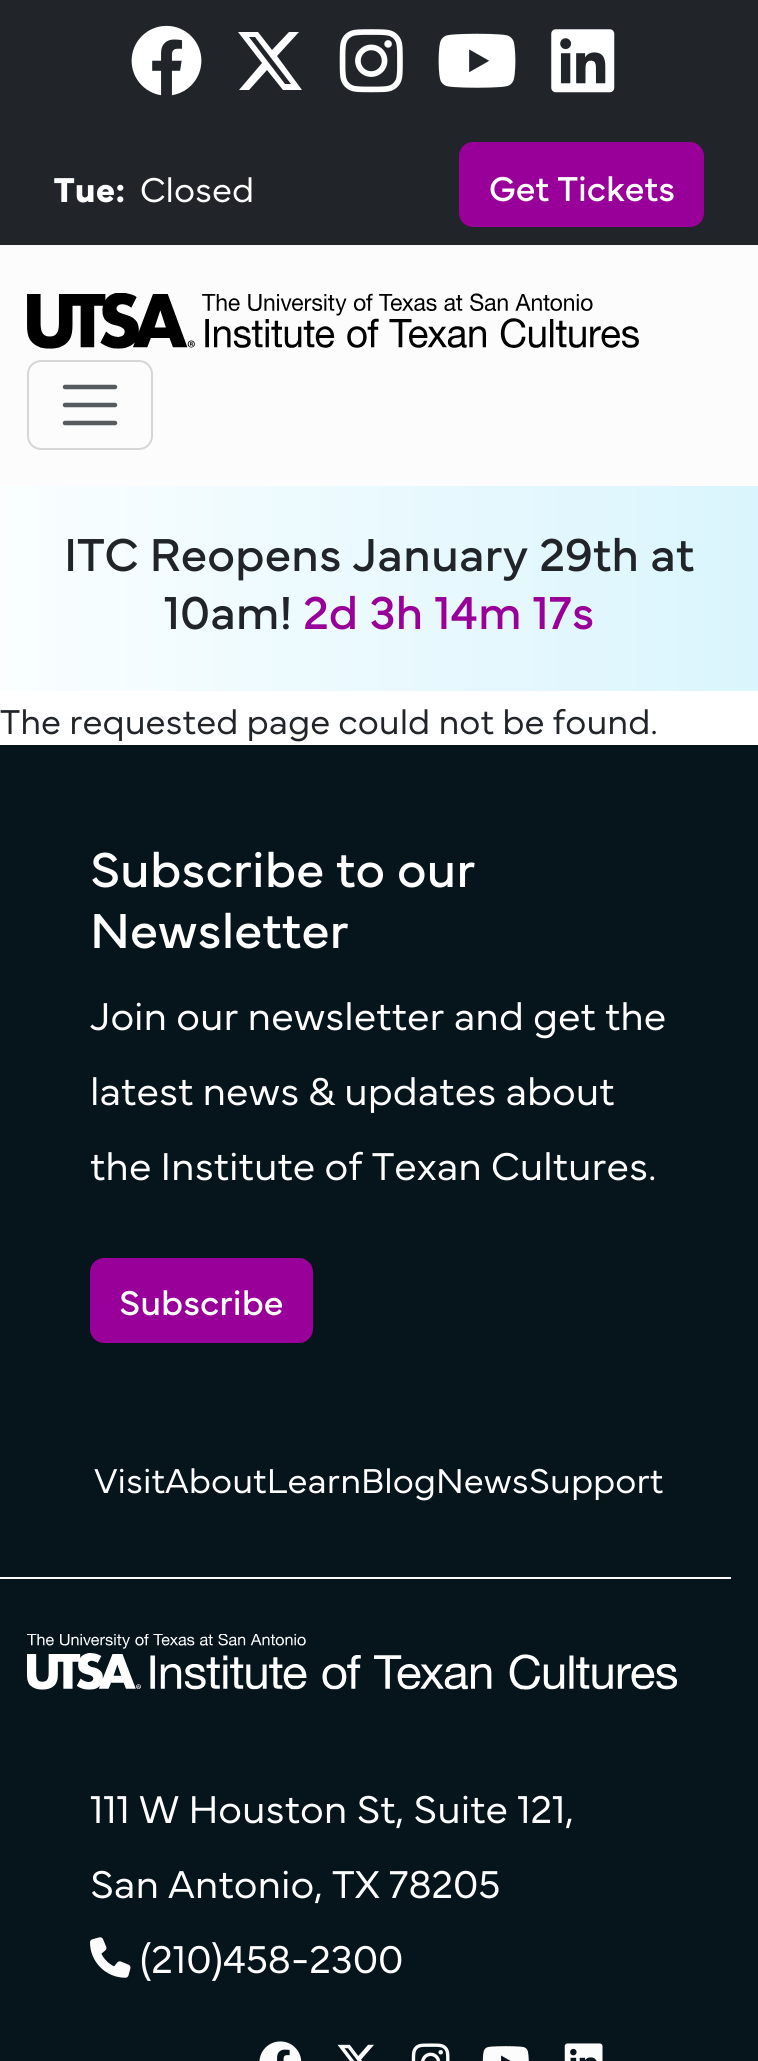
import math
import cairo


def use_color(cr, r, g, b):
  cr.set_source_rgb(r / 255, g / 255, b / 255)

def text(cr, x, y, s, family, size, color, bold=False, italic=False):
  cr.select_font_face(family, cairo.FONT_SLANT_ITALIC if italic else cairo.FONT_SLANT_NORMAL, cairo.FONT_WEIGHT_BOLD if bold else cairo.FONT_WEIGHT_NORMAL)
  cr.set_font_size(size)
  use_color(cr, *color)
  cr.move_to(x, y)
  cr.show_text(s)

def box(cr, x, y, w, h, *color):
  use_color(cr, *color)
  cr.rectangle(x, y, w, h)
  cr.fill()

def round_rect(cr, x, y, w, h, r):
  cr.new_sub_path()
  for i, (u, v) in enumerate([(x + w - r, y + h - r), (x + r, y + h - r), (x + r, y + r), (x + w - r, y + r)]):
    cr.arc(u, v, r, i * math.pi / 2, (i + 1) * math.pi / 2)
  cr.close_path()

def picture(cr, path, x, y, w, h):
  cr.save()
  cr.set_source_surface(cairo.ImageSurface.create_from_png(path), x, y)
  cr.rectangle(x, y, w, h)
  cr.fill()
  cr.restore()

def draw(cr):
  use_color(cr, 255, 255, 255)
  cr.paint()
  box(cr, 0, 245, 758, 241, 252, 252, 252)
  box(cr, 0, 0, 758, 245, 33, 37, 41)
  picture(cr, "img_01.png", 131, 25, 71, 71)
  use_color(cr, 255, 255, 255)
  cr.new_path()
  cr.move_to(289, 32)
  cr.line_to(299, 32)
  cr.line_to(277, 56)
  cr.line_to(302, 90)
  cr.line_to(283, 90)
  cr.line_to(267, 70)
  cr.line_to(249, 90)
  cr.line_to(239, 90)
  cr.line_to(262, 63)
  cr.line_to(238, 32)
  cr.line_to(258, 32)
  cr.line_to(272, 50)
  cr.close_path()
  cr.move_to(285, 84)
  cr.line_to(291, 84)
  cr.line_to(255, 37)
  cr.line_to(249, 37)
  cr.close_path()
  cr.fill()
  picture(cr, "img_02.png", 339, 29, 64, 64)
  picture(cr, "img_03.png", 438, 33, 78, 55)
  picture(cr, "img_04.png", 551, 29, 64, 64)
  use_color(cr, 153, 0, 153)
  round_rect(cr, 460, 143, 243, 83, 13)
  cr.fill_preserve()
  cr.stroke()
  picture(cr, "img_05.png", 27, 293, 612, 56)
  round_rect(cr, 28, 361, 124, 88, 13)
  use_color(cr, 214, 214, 214)
  cr.stroke()
  cr.new_path()
  cr.move_to(65, 387)
  cr.line_to(115, 387)
  cr.move_to(65, 405)
  cr.line_to(115, 405)
  cr.move_to(65, 423)
  cr.line_to(115, 423)
  use_color(cr, 88, 91, 94)
  cr.set_line_width(4.5)
  cr.set_line_cap(cairo.LINE_CAP_ROUND)
  cr.stroke()
  gradient = cairo.LinearGradient(0, 588, 758, 588)
  gradient.add_color_stop_rgba(0, 0.98, 0.996, 1, 1)
  gradient.add_color_stop_rgba(1, 0.855, 0.961, 0.992, 1)
  cr.set_source(gradient)
  cr.rectangle(0, 486, 758, 205)
  cr.fill()
  box(cr, 0, 745, 758, 1316, 6, 20, 28)
  use_color(cr, 153, 0, 153)
  round_rect(cr, 91, 1259, 221, 83, 13)
  cr.fill_preserve()
  cr.set_line_width(2)
  cr.set_line_cap(cairo.LINE_CAP_BUTT)
  cr.stroke()
  box(cr, 0, 1577, 731, 2, 252, 252, 252)
  picture(cr, "img_06.png", 27, 1634, 650, 56)
  picture(cr, "img_07.png", 90, 1937, 41, 41)
  picture(cr, "img_08.png", 259, 2041, 43, 20)
  picture(cr, "img_09.png", 337, 2044, 37, 17)
  picture(cr, "img_10.png", 411, 2043, 39, 18)
  picture(cr, "img_11.png", 482, 2046, 47, 15)
  picture(cr, "img_12.png", 564, 2043, 39, 18)
  text(cr, 54, 202, "Tue:", "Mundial", 36, (255, 255, 255), bold=True)
  text(cr, 140, 202, "Closed", "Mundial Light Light", 36, (255, 255, 255))
  text(cr, 489, 201, "Get Tickets", "Mundial", 36, (255, 255, 255))
  text(cr, 64, 571, "ITC Reopens January 29th at", "Mundial", 48.2, (33, 37, 41))
  text(cr, 164, 629, "10am!", "Mundial", 48.2, (33, 37, 41))
  text(cr, 303, 629, "2d 3h 14m 17s", "Mundial", 48.2, (153, 0, 153))
  text(cr, 0, 734, "The requested page could not be found.", "Mundial Light Light", 36, (33, 37, 41))
  text(cr, 90, 887, "Subscribe to our", "Mundial", 51.25, (255, 255, 255))
  text(cr, 90, 948, "Newsletter", "Mundial", 51.25, (255, 255, 255))
  text(cr, 90, 1030, "Join our newsletter and get the", "Mundial Light Light", 40.5, (255, 255, 255))
  text(cr, 90, 1105, "latest news & updates about", "Mundial Light Light", 40.5, (255, 255, 255))
  text(cr, 90, 1180, "the Institute of Texan Cultures.", "Mundial Light Light", 40.5, (255, 255, 255))
  text(cr, 119, 1315, "Subscribe", "Mundial", 36, (255, 255, 255))
  text(cr, 94, 1493, "VisitAboutLearnBlogNewsSupport", "Mundial Light Light", 36, (255, 255, 255))
  text(cr, 90, 1823, "111 W Houston St, Suite 121,", "Mundial Light Light", 40.5, (255, 255, 255))
  text(cr, 90, 1898, "San Antonio, TX 78205", "Mundial Light Light", 40.5, (255, 255, 255))
  text(cr, 140, 1973, "(210)458-2300", "Mundial Light Light", 40.5, (255, 255, 255))


surface = cairo.ImageSurface(cairo.FORMAT_RGB24, 758, 2061)
cr = cairo.Context(surface)
options = cairo.FontOptions()
options.set_hint_metrics(cairo.HINT_METRICS_OFF)
options.set_hint_style(cairo.HINT_STYLE_NONE)
cr.set_font_options(options)
cr.set_miter_limit(4)
draw(cr)
surface.write_to_png("out.png")
